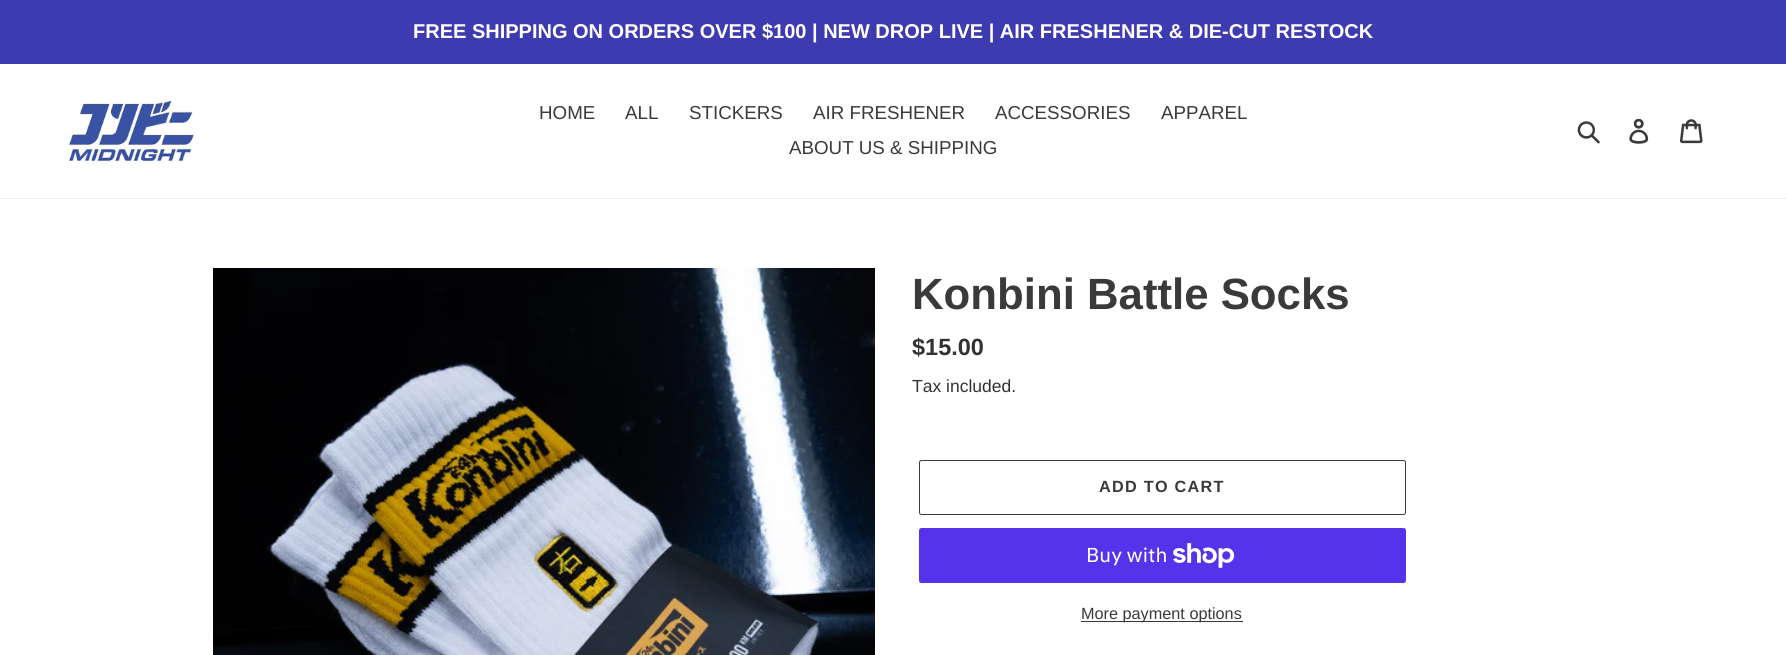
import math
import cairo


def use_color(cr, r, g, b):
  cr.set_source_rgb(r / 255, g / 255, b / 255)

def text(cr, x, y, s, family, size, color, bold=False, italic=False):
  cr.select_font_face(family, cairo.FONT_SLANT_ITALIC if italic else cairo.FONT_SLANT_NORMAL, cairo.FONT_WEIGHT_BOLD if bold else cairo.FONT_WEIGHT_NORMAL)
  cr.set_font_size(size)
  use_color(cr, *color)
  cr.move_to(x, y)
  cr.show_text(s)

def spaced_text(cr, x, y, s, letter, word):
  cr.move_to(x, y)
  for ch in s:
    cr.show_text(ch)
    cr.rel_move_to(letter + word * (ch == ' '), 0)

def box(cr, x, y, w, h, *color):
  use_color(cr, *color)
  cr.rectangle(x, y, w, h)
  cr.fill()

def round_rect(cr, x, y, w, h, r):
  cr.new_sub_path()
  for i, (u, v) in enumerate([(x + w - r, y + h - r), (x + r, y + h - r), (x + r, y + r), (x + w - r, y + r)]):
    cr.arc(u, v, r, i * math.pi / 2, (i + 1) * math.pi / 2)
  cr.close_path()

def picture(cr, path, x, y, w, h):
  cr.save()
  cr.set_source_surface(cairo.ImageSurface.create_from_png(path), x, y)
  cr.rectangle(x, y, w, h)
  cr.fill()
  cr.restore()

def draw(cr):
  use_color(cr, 255, 255, 255)
  cr.paint()
  box(cr, 0, 0, 1786, 64, 62, 58, 175)
  box(cr, 0, 198, 1786, 1, 235, 235, 235)
  picture(cr, "img_01.png", 68, 100, 126, 64)
  picture(cr, "img_02.png", 1577, 121, 23, 23)
  picture(cr, "img_03.png", 1629, 119, 20, 25)
  picture(cr, "img_04.png", 1680, 119, 23, 25)
  picture(cr, "img_05.png", 213, 268, 662, 387)
  round_rect(cr, 919.5, 460.5, 486, 54, 2)
  use_color(cr, 58, 58, 58)
  cr.set_line_width(1)
  cr.stroke()
  use_color(cr, 84, 51, 235)
  round_rect(cr, 919, 528, 487, 55, 2.5)
  cr.fill()
  picture(cr, "img_06.png", 1173, 543, 62, 25)
  box(cr, 1081, 621, 162, 1, 58, 58, 58)
  text(cr, 413, 38, "FREE SHIPPING ON ORDERS OVER $100 | NEW DROP LIVE | AIR FRESHENER & DIE-CUT RESTOCK", "Liberation Sans", 20, (255, 255, 255), bold=True)
  text(cr, 539, 119, "HOME", "Liberation Sans", 18.75, (58, 58, 58))
  text(cr, 625, 119, "ALL", "Liberation Sans", 18.75, (58, 58, 58))
  text(cr, 689, 119, "STICKERS", "Liberation Sans", 18.75, (58, 58, 58))
  text(cr, 813, 119, "AIR FRESHENER", "Liberation Sans", 18.75, (58, 58, 58))
  text(cr, 995, 119, "ACCESSORIES", "Liberation Sans", 18.75, (58, 58, 58))
  text(cr, 1161, 119, "APPAREL", "Liberation Sans", 18.75, (58, 58, 58))
  text(cr, 789, 154, "ABOUT US & SHIPPING", "Liberation Sans", 18.75, (58, 58, 58))
  text(cr, 912, 309, "Konbini Battle Socks", "Liberation Sans", 43.75, (58, 58, 58), bold=True)
  text(cr, 912, 355, "$15.00", "Liberation Sans", 23.5, (51, 50, 50), bold=True)
  text(cr, 912, 392, "Tax included.", "Liberation Sans", 17.5, (51, 50, 50))
  cr.select_font_face("Liberation Sans", cairo.FONT_SLANT_NORMAL, cairo.FONT_WEIGHT_BOLD)
  cr.set_font_size(16.25)
  use_color(cr, 58, 58, 58)
  spaced_text(cr, 1099, 492, "ADD TO CART", 1.25, 0)
  text(cr, 1086, 562, "Buy with", "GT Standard", 20, (255, 255, 255))
  text(cr, 1081, 619, "More payment options", "Liberation Sans", 16.25, (58, 58, 58))


surface = cairo.ImageSurface(cairo.FORMAT_RGB24, 1786, 655)
cr = cairo.Context(surface)
options = cairo.FontOptions()
options.set_hint_metrics(cairo.HINT_METRICS_OFF)
options.set_hint_style(cairo.HINT_STYLE_NONE)
cr.set_font_options(options)
cr.set_miter_limit(4)
draw(cr)
surface.write_to_png("out.png")
